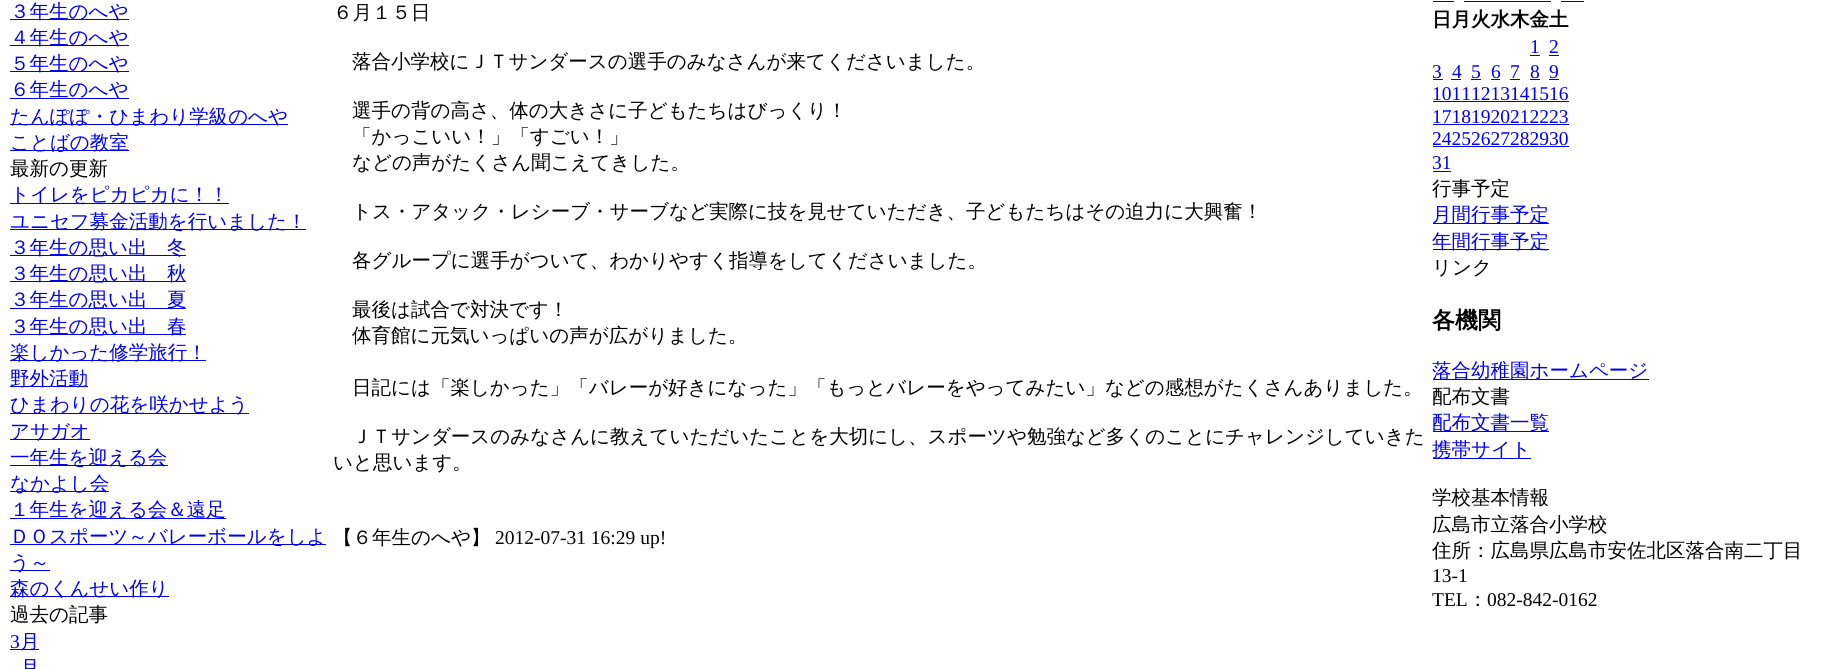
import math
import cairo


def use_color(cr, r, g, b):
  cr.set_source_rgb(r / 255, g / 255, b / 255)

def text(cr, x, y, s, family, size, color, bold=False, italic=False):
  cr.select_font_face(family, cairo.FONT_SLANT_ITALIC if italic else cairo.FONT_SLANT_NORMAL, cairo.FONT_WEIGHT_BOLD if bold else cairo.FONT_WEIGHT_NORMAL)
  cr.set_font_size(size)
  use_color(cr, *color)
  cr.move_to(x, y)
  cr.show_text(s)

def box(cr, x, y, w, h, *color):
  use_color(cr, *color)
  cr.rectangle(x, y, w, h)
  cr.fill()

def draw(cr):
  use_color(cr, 255, 255, 255)
  cr.paint()
  box(cr, 10, 19, 119, 1, 0, 0, 238)
  box(cr, 10, 45, 119, 1, 0, 0, 238)
  box(cr, 10, 71, 119, 1, 0, 0, 238)
  box(cr, 10, 98, 119, 1, 0, 0, 238)
  box(cr, 10, 124, 278, 1, 0, 0, 238)
  box(cr, 10, 150, 119, 1, 0, 0, 238)
  box(cr, 10, 203, 219, 1, 0, 0, 238)
  box(cr, 10, 229, 296, 1, 0, 0, 238)
  box(cr, 10, 255, 176, 1, 0, 0, 238)
  box(cr, 10, 281, 176, 1, 0, 0, 238)
  box(cr, 10, 308, 176, 1, 0, 0, 238)
  box(cr, 10, 334, 176, 1, 0, 0, 238)
  box(cr, 10, 360, 196, 1, 0, 0, 238)
  box(cr, 10, 386, 78, 1, 0, 0, 238)
  box(cr, 10, 413, 239, 1, 0, 0, 238)
  box(cr, 10, 439, 80, 1, 0, 0, 238)
  box(cr, 10, 465, 158, 1, 0, 0, 238)
  box(cr, 10, 491, 99, 1, 0, 0, 238)
  box(cr, 10, 518, 216, 1, 0, 0, 238)
  box(cr, 10, 544, 316, 1, 0, 0, 238)
  box(cr, 10, 570, 40, 1, 0, 0, 238)
  box(cr, 10, 596, 159, 1, 0, 0, 238)
  box(cr, 10, 649, 29, 1, 0, 0, 238)
  box(cr, 1433, 1, 21, 1, 0, 0, 238)
  box(cr, 1464, 1, 87, 1, 0, 0, 238)
  box(cr, 1561, 1, 23, 1, 0, 0, 238)
  box(cr, 1530, 55, 10, 1, 0, 0, 238)
  box(cr, 1549, 55, 10, 1, 0, 0, 238)
  box(cr, 1433, 79, 10, 1, 0, 0, 238)
  box(cr, 1451, 79, 10, 1, 0, 0, 238)
  box(cr, 1471, 79, 10, 1, 0, 0, 238)
  box(cr, 1491, 79, 9, 1, 0, 0, 238)
  box(cr, 1510, 79, 10, 1, 0, 0, 238)
  box(cr, 1530, 79, 10, 1, 0, 0, 238)
  box(cr, 1549, 79, 10, 1, 0, 0, 238)
  box(cr, 1433, 101, 136, 1, 0, 0, 238)
  box(cr, 1433, 124, 136, 1, 0, 0, 238)
  box(cr, 1433, 146, 136, 1, 0, 0, 238)
  box(cr, 1433, 171, 18, 1, 0, 0, 238)
  box(cr, 1433, 223, 116, 1, 0, 0, 238)
  box(cr, 1433, 249, 116, 1, 0, 0, 238)
  box(cr, 1433, 379, 216, 1, 0, 0, 238)
  box(cr, 1433, 431, 116, 1, 0, 0, 238)
  box(cr, 1433, 458, 98, 1, 0, 0, 238)
  text(cr, 10, 18, "３年生のへや", "WenQuanYi Zen Hei Medium", 19.5, (0, 0, 238))
  text(cr, 10, 44, "４年生のへや", "WenQuanYi Zen Hei Medium", 19.5, (0, 0, 238))
  text(cr, 10, 70, "５年生のへや", "WenQuanYi Zen Hei Medium", 19.5, (0, 0, 238))
  text(cr, 10, 96, "６年生のへや", "WenQuanYi Zen Hei Medium", 19.5, (0, 0, 238))
  text(cr, 10, 123, "たんぽぽ・ひまわり学級のへや", "WenQuanYi Zen Hei Medium", 19.5, (0, 0, 238))
  text(cr, 10, 149, "ことばの教室", "WenQuanYi Zen Hei Medium", 19.5, (0, 0, 238))
  text(cr, 10, 175, "最新の更新", "WenQuanYi Zen Hei Medium", 19.5, (0, 0, 0))
  text(cr, 10, 201, "トイレをピカピカに！！", "WenQuanYi Zen Hei Medium", 19.5, (0, 0, 238))
  text(cr, 10, 228, "ユニセフ募金活動を行いました！", "WenQuanYi Zen Hei Medium", 19.5, (0, 0, 238))
  text(cr, 10, 254, "３年生の思い出　冬", "WenQuanYi Zen Hei Medium", 19.5, (0, 0, 238))
  text(cr, 10, 280, "３年生の思い出　秋", "WenQuanYi Zen Hei Medium", 19.5, (0, 0, 238))
  text(cr, 10, 306, "３年生の思い出　夏", "WenQuanYi Zen Hei Medium", 19.5, (0, 0, 238))
  text(cr, 10, 333, "３年生の思い出　春", "WenQuanYi Zen Hei Medium", 19.5, (0, 0, 238))
  text(cr, 10, 359, "楽しかった修学旅行！", "WenQuanYi Zen Hei Medium", 19.5, (0, 0, 238))
  text(cr, 10, 385, "野外活動", "WenQuanYi Zen Hei Medium", 19.5, (0, 0, 238))
  text(cr, 10, 411, "ひまわりの花を咲かせよう", "WenQuanYi Zen Hei Medium", 19.5, (0, 0, 238))
  text(cr, 10, 438, "アサガオ", "WenQuanYi Zen Hei Medium", 19.5, (0, 0, 238))
  text(cr, 10, 464, "一年生を迎える会", "WenQuanYi Zen Hei Medium", 19.5, (0, 0, 238))
  text(cr, 10, 490, "なかよし会", "WenQuanYi Zen Hei Medium", 19.5, (0, 0, 238))
  text(cr, 10, 516, "１年生を迎える会＆遠足", "WenQuanYi Zen Hei Medium", 19.5, (0, 0, 238))
  text(cr, 10, 543, "ＤＯスポーツ～バレーボールをしよ", "WenQuanYi Zen Hei Medium", 19.5, (0, 0, 238))
  text(cr, 10, 569, "う～", "WenQuanYi Zen Hei Medium", 19.5, (0, 0, 238))
  text(cr, 10, 595, "森のくんせい作り", "WenQuanYi Zen Hei Medium", 19.5, (0, 0, 238))
  text(cr, 10, 621, "過去の記事", "WenQuanYi Zen Hei Medium", 19.5, (0, 0, 0))
  text(cr, 10, 648, "3", "Liberation Serif", 19.5, (0, 0, 238))
  text(cr, 20, 648, "月", "WenQuanYi Zen Hei Medium", 19.5, (0, 0, 238))
  text(cr, 20, 674, "月", "WenQuanYi Zen Hei Medium", 19.5, (0, 0, 238))
  text(cr, 333, 19, "６月１５日", "WenQuanYi Zen Hei Medium", 19.5, (0, 0, 0))
  text(cr, 352, 68, "落合小学校にＪＴサンダースの選手のみなさんが来てくださいました。", "WenQuanYi Zen Hei Medium", 19.5, (0, 0, 0))
  text(cr, 352, 117, "選手の背の高さ、体の大きさに子どもたちはびっくり！", "WenQuanYi Zen Hei Medium", 19.5, (0, 0, 0))
  text(cr, 352, 143, "「かっこいい！」「すごい！」", "WenQuanYi Zen Hei Medium", 19.5, (0, 0, 0))
  text(cr, 352, 169, "などの声がたくさん聞こえてきした。", "WenQuanYi Zen Hei Medium", 19.5, (0, 0, 0))
  text(cr, 352, 218, "トス・アタック・レシーブ・サーブなど実際に技を見せていただき、子どもたちはその迫力に大興奮！", "WenQuanYi Zen Hei Medium", 19.5, (0, 0, 0))
  text(cr, 352, 267, "各グループに選手がついて、わかりやすく指導をしてくださいました。", "WenQuanYi Zen Hei Medium", 19.5, (0, 0, 0))
  text(cr, 352, 316, "最後は試合で対決です！", "WenQuanYi Zen Hei Medium", 19.5, (0, 0, 0))
  text(cr, 352, 342, "体育館に元気いっぱいの声が広がりました。", "WenQuanYi Zen Hei Medium", 19.5, (0, 0, 0))
  text(cr, 352, 394, "日記には「楽しかった」「バレーが好きになった」「もっとバレーをやってみたい」などの感想がたくさんありました。", "WenQuanYi Zen Hei Medium", 19.5, (0, 0, 0))
  text(cr, 352, 443, "ＪＴサンダースのみなさんに教えていただいたことを大切にし、スポーツや勉強など多くのことにチャレンジしていきた", "WenQuanYi Zen Hei Medium", 19.5, (0, 0, 0))
  text(cr, 333, 469, "いと思います。", "WenQuanYi Zen Hei Medium", 19.5, (0, 0, 0))
  text(cr, 333, 544, "【６年生のへや】", "WenQuanYi Zen Hei Medium", 19.5, (0, 0, 0))
  text(cr, 495, 544, "2012-07-31 16:29 up!", "Liberation Serif", 19.5, (0, 0, 0))
  text(cr, 1432, 26, "日月火水木金土", "WenQuanYi Zen Hei", 19.5, (0, 0, 0), bold=True)
  text(cr, 1530, 53, "1", "Liberation Serif", 19.5, (0, 0, 238))
  text(cr, 1549, 53, "2", "Liberation Serif", 19.5, (0, 0, 238))
  text(cr, 1432, 78, "3", "Liberation Serif", 19.5, (0, 0, 238))
  text(cr, 1452, 78, "4", "Liberation Serif", 19.5, (0, 0, 238))
  text(cr, 1471, 78, "5", "Liberation Serif", 19.5, (0, 0, 238))
  text(cr, 1491, 78, "6", "Liberation Serif", 19.5, (0, 0, 238))
  text(cr, 1510, 78, "7", "Liberation Serif", 19.5, (0, 0, 238))
  text(cr, 1530, 78, "8", "Liberation Serif", 19.5, (0, 0, 238))
  text(cr, 1549, 78, "9", "Liberation Serif", 19.5, (0, 0, 238))
  text(cr, 1432, 100, "10111213141516", "Liberation Serif", 19.5, (0, 0, 238))
  text(cr, 1432, 123, "17181920212223", "Liberation Serif", 19.5, (0, 0, 238))
  text(cr, 1432, 145, "24252627282930", "Liberation Serif", 19.5, (0, 0, 238))
  text(cr, 1432, 169, "31", "Liberation Serif", 19.5, (0, 0, 238))
  text(cr, 1432, 195, "行事予定", "WenQuanYi Zen Hei Medium", 19.5, (0, 0, 0))
  text(cr, 1432, 221, "月間行事予定", "WenQuanYi Zen Hei Medium", 19.5, (0, 0, 238))
  text(cr, 1432, 248, "年間行事予定", "WenQuanYi Zen Hei Medium", 19.5, (0, 0, 238))
  text(cr, 1432, 274, "リンク", "WenQuanYi Zen Hei Medium", 19.5, (0, 0, 0))
  text(cr, 1432, 328, "各機関", "WenQuanYi Zen Hei", 23, (0, 0, 0), bold=True)
  text(cr, 1432, 377, "落合幼稚園ホームページ", "WenQuanYi Zen Hei Medium", 19.5, (0, 0, 238))
  text(cr, 1432, 403, "配布文書", "WenQuanYi Zen Hei Medium", 19.5, (0, 0, 0))
  text(cr, 1432, 429, "配布文書一覧", "WenQuanYi Zen Hei Medium", 19.5, (0, 0, 238))
  text(cr, 1432, 456, "携帯サイト", "WenQuanYi Zen Hei Medium", 19.5, (0, 0, 238))
  text(cr, 1432, 504, "学校基本情報", "WenQuanYi Zen Hei Medium", 19.5, (0, 0, 0))
  text(cr, 1432, 531, "広島市立落合小学校", "WenQuanYi Zen Hei Medium", 19.5, (0, 0, 0))
  text(cr, 1432, 557, "住所：広島県広島市安佐北区落合南二丁目", "WenQuanYi Zen Hei Medium", 19.5, (0, 0, 0))
  text(cr, 1432, 582, "13-1", "Liberation Serif", 19.5, (0, 0, 0))
  text(cr, 1432, 606, "TEL", "Liberation Serif", 19.5, (0, 0, 0))
  text(cr, 1468, 606, "：", "WenQuanYi Zen Hei Medium", 19.5, (0, 0, 0))
  text(cr, 1487, 606, "082-842-0162", "Liberation Serif", 19.5, (0, 0, 0))


surface = cairo.ImageSurface(cairo.FORMAT_RGB24, 1828, 669)
cr = cairo.Context(surface)
options = cairo.FontOptions()
options.set_hint_metrics(cairo.HINT_METRICS_OFF)
options.set_hint_style(cairo.HINT_STYLE_NONE)
cr.set_font_options(options)
cr.set_miter_limit(4)
draw(cr)
surface.write_to_png("out.png")
